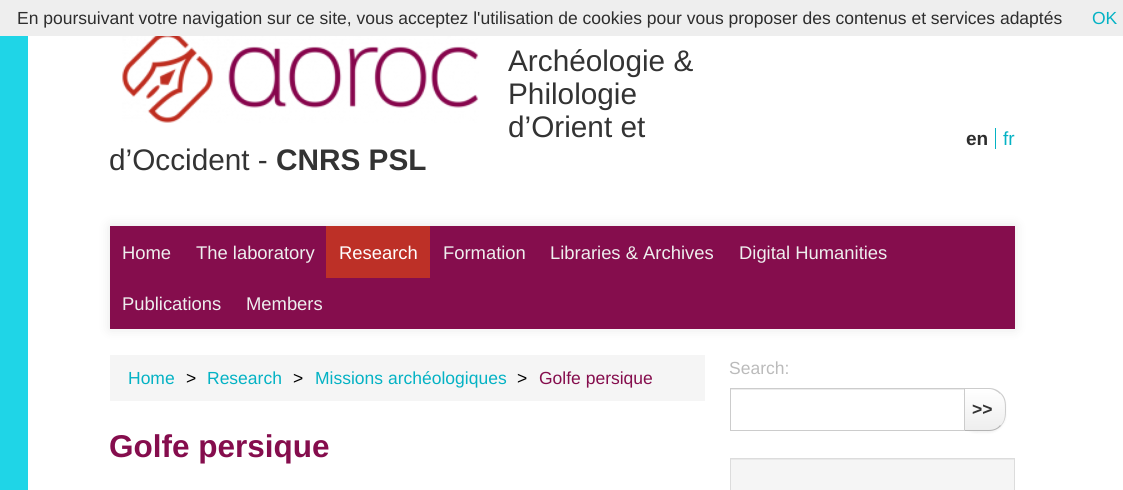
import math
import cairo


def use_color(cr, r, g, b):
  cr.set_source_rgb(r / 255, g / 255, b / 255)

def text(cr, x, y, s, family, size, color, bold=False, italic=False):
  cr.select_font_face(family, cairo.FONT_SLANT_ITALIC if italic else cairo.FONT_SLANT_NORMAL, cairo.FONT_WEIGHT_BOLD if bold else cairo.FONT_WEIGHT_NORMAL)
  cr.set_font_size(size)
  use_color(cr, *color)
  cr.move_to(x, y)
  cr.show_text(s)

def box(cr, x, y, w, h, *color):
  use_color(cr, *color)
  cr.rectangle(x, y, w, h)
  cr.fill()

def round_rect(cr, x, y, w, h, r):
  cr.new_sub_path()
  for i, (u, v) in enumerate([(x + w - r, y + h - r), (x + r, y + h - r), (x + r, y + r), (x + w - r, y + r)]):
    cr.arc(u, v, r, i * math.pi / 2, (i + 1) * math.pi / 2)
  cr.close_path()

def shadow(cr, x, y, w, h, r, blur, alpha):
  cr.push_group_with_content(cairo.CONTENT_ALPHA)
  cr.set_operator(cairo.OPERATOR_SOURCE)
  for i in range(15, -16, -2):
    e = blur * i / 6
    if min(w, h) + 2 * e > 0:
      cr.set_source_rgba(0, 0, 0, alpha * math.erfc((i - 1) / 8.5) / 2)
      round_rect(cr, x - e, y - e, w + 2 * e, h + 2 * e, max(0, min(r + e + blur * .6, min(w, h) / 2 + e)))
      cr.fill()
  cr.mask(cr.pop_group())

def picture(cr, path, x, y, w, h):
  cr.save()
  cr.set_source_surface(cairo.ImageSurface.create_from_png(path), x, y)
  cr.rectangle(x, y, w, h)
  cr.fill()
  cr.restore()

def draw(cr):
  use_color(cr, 255, 255, 255)
  cr.paint()
  box(cr, 0, 0, 1123, 36, 238, 238, 238)
  box(cr, 0, 36, 28, 454, 31, 213, 231)
  picture(cr, "img_01.png", 122, 36, 357, 87)
  box(cr, 995, 128, 1, 21, 4, 178, 196)
  use_color(cr, 0, 0, 0)
  shadow(cr, 110, 226, 905, 103, 0, 6, 0.1)
  cr.set_source_rgba(1, 1, 1, 0.4)
  cr.rectangle(110, 329, 905, 1)
  cr.fill()
  box(cr, 110, 226, 905, 103, 133, 13, 77)
  box(cr, 326, 226, 104, 52, 189, 48, 39)
  box(cr, 110, 355, 595, 46, 245, 245, 245)
  use_color(cr, 0, 0, 0)
  shadow(cr, 959, 389, 47, 44, 18, 1, 0.05)
  cr.save()
  cr.new_path()
  cr.move_to(959, 388)
  cr.line_to(988, 388)
  cr.curve_to(998, 388, 1006, 396, 1006, 406)
  cr.line_to(1006, 413)
  cr.curve_to(1006, 423, 998, 431, 988, 431)
  cr.line_to(959, 431)
  cr.close_path()
  cr.clip()
  gradient = cairo.LinearGradient(983, 389, 983, 430)
  gradient.add_color_stop_rgba(0, 1, 1, 1, 1)
  gradient.add_color_stop_rgba(1, 0.933, 0.933, 0.933, 1)
  cr.set_source(gradient)
  cr.rectangle(965, 389, 41, 41)
  cr.fill()
  cr.restore()
  use_color(cr, 204, 204, 204)
  cr.new_path()
  cr.move_to(1001, 393)
  cr.curve_to(998, 390, 994, 388, 989, 388)
  cr.line_to(959, 388)
  cr.line_to(960, 389)
  cr.line_to(989, 389)
  cr.curve_to(993, 389, 997, 391, 1000, 394)
  cr.close_path()
  cr.fill()
  cr.new_path()
  cr.move_to(1001, 393)
  cr.curve_to(1006, 397.5, 1006, 403, 1006, 409.5)
  cr.curve_to(1006, 416, 1005.5, 421, 1001, 426)
  cr.line_to(1000.5, 425.5)
  cr.curve_to(1005, 421, 1005, 415.5, 1005, 409.5)
  cr.curve_to(1005, 403.5, 1005, 398, 1000, 393.5)
  cr.close_path()
  cr.fill()
  use_color(cr, 179, 179, 179)
  cr.new_path()
  cr.move_to(1001, 426)
  cr.curve_to(998, 429, 994, 431, 989, 431)
  cr.line_to(959, 431)
  cr.line_to(960, 430)
  cr.line_to(989, 430)
  cr.curve_to(994, 430, 998, 428, 1000, 425)
  cr.close_path()
  cr.fill()
  box(cr, 958, 395, 6, 35, 255, 255, 255)
  box(cr, 731, 389, 233, 1, 236, 236, 236)
  cr.rectangle(730.5, 388.5, 234, 42)
  use_color(cr, 204, 204, 204)
  cr.set_line_width(1)
  cr.stroke()
  box(cr, 731, 460, 283, 30, 245, 245, 245)
  box(cr, 731, 459, 283, 1, 233, 233, 233)
  cr.rectangle(730.5, 458.5, 284, 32)
  use_color(cr, 220, 220, 220)
  cr.stroke()
  text(cr, 17, 24, "En poursuivant votre navigation sur ce site, vous acceptez l'utilisation de cookies pour vous proposer des contenus et services adaptés", "Liberation Sans", 17.5, (45, 45, 45))
  text(cr, 1092, 24, "OK", "Liberation Sans", 17.5, (4, 178, 196))
  text(cr, 508, 71, "Archéologie &", "Liberation Sans", 29.75, (51, 51, 51))
  text(cr, 508, 104, "Philologie", "Liberation Sans", 29.75, (51, 51, 51))
  text(cr, 508, 137, "d’Orient et", "Liberation Sans", 29.75, (51, 51, 51))
  text(cr, 109, 170, "d’Occident -", "Liberation Sans", 29.75, (51, 51, 51))
  text(cr, 276, 170, "CNRS PSL", "Liberation Sans", 29.75, (51, 51, 51), bold=True)
  text(cr, 966, 145, "en", "Liberation Sans", 19, (45, 45, 45), bold=True)
  text(cr, 1003, 145, "fr", "Liberation Sans", 19, (4, 178, 196))
  text(cr, 122, 259, "Home", "Liberation Sans", 18.4, (238, 238, 238))
  text(cr, 196, 259, "The laboratory", "Liberation Sans", 18.4, (238, 238, 238))
  text(cr, 339, 259, "Research", "Liberation Sans", 18.4, (255, 255, 255))
  text(cr, 443, 259, "Formation", "Liberation Sans", 18.4, (238, 238, 238))
  text(cr, 550, 259, "Libraries & Archives", "Liberation Sans", 18.4, (238, 238, 238))
  text(cr, 739, 259, "Digital Humanities", "Liberation Sans", 18.4, (238, 238, 238))
  text(cr, 122, 310, "Publications", "Liberation Sans", 18.4, (238, 238, 238))
  text(cr, 246, 310, "Members", "Liberation Sans", 18.4, (238, 238, 238))
  text(cr, 128, 384, "Home", "Liberation Sans", 17.5, (4, 178, 196))
  text(cr, 186, 384, ">", "Liberation Sans", 17.5, (0, 0, 0))
  text(cr, 207, 384, "Research", "Liberation Sans", 17.5, (4, 178, 196))
  text(cr, 293, 384, ">", "Liberation Sans", 17.5, (0, 0, 0))
  text(cr, 315, 384, "Missions archéologiques", "Liberation Sans", 17.5, (4, 178, 196))
  text(cr, 517, 384, ">", "Liberation Sans", 17.5, (0, 0, 0))
  text(cr, 539, 384, "Golfe persique", "Liberation Sans", 17.5, (133, 13, 77))
  text(cr, 109, 457, "Golfe persique", "Liberation Sans", 31.5, (133, 13, 77), bold=True)
  text(cr, 729, 374, "Search:", "Liberation Sans", 17.5, (187, 187, 187))
  text(cr, 972, 415, ">>", "Liberation Sans", 17.5, (51, 51, 51), bold=True)


surface = cairo.ImageSurface(cairo.FORMAT_RGB24, 1123, 490)
cr = cairo.Context(surface)
options = cairo.FontOptions()
options.set_hint_metrics(cairo.HINT_METRICS_OFF)
options.set_hint_style(cairo.HINT_STYLE_NONE)
cr.set_font_options(options)
cr.set_miter_limit(4)
draw(cr)
surface.write_to_png("out.png")
